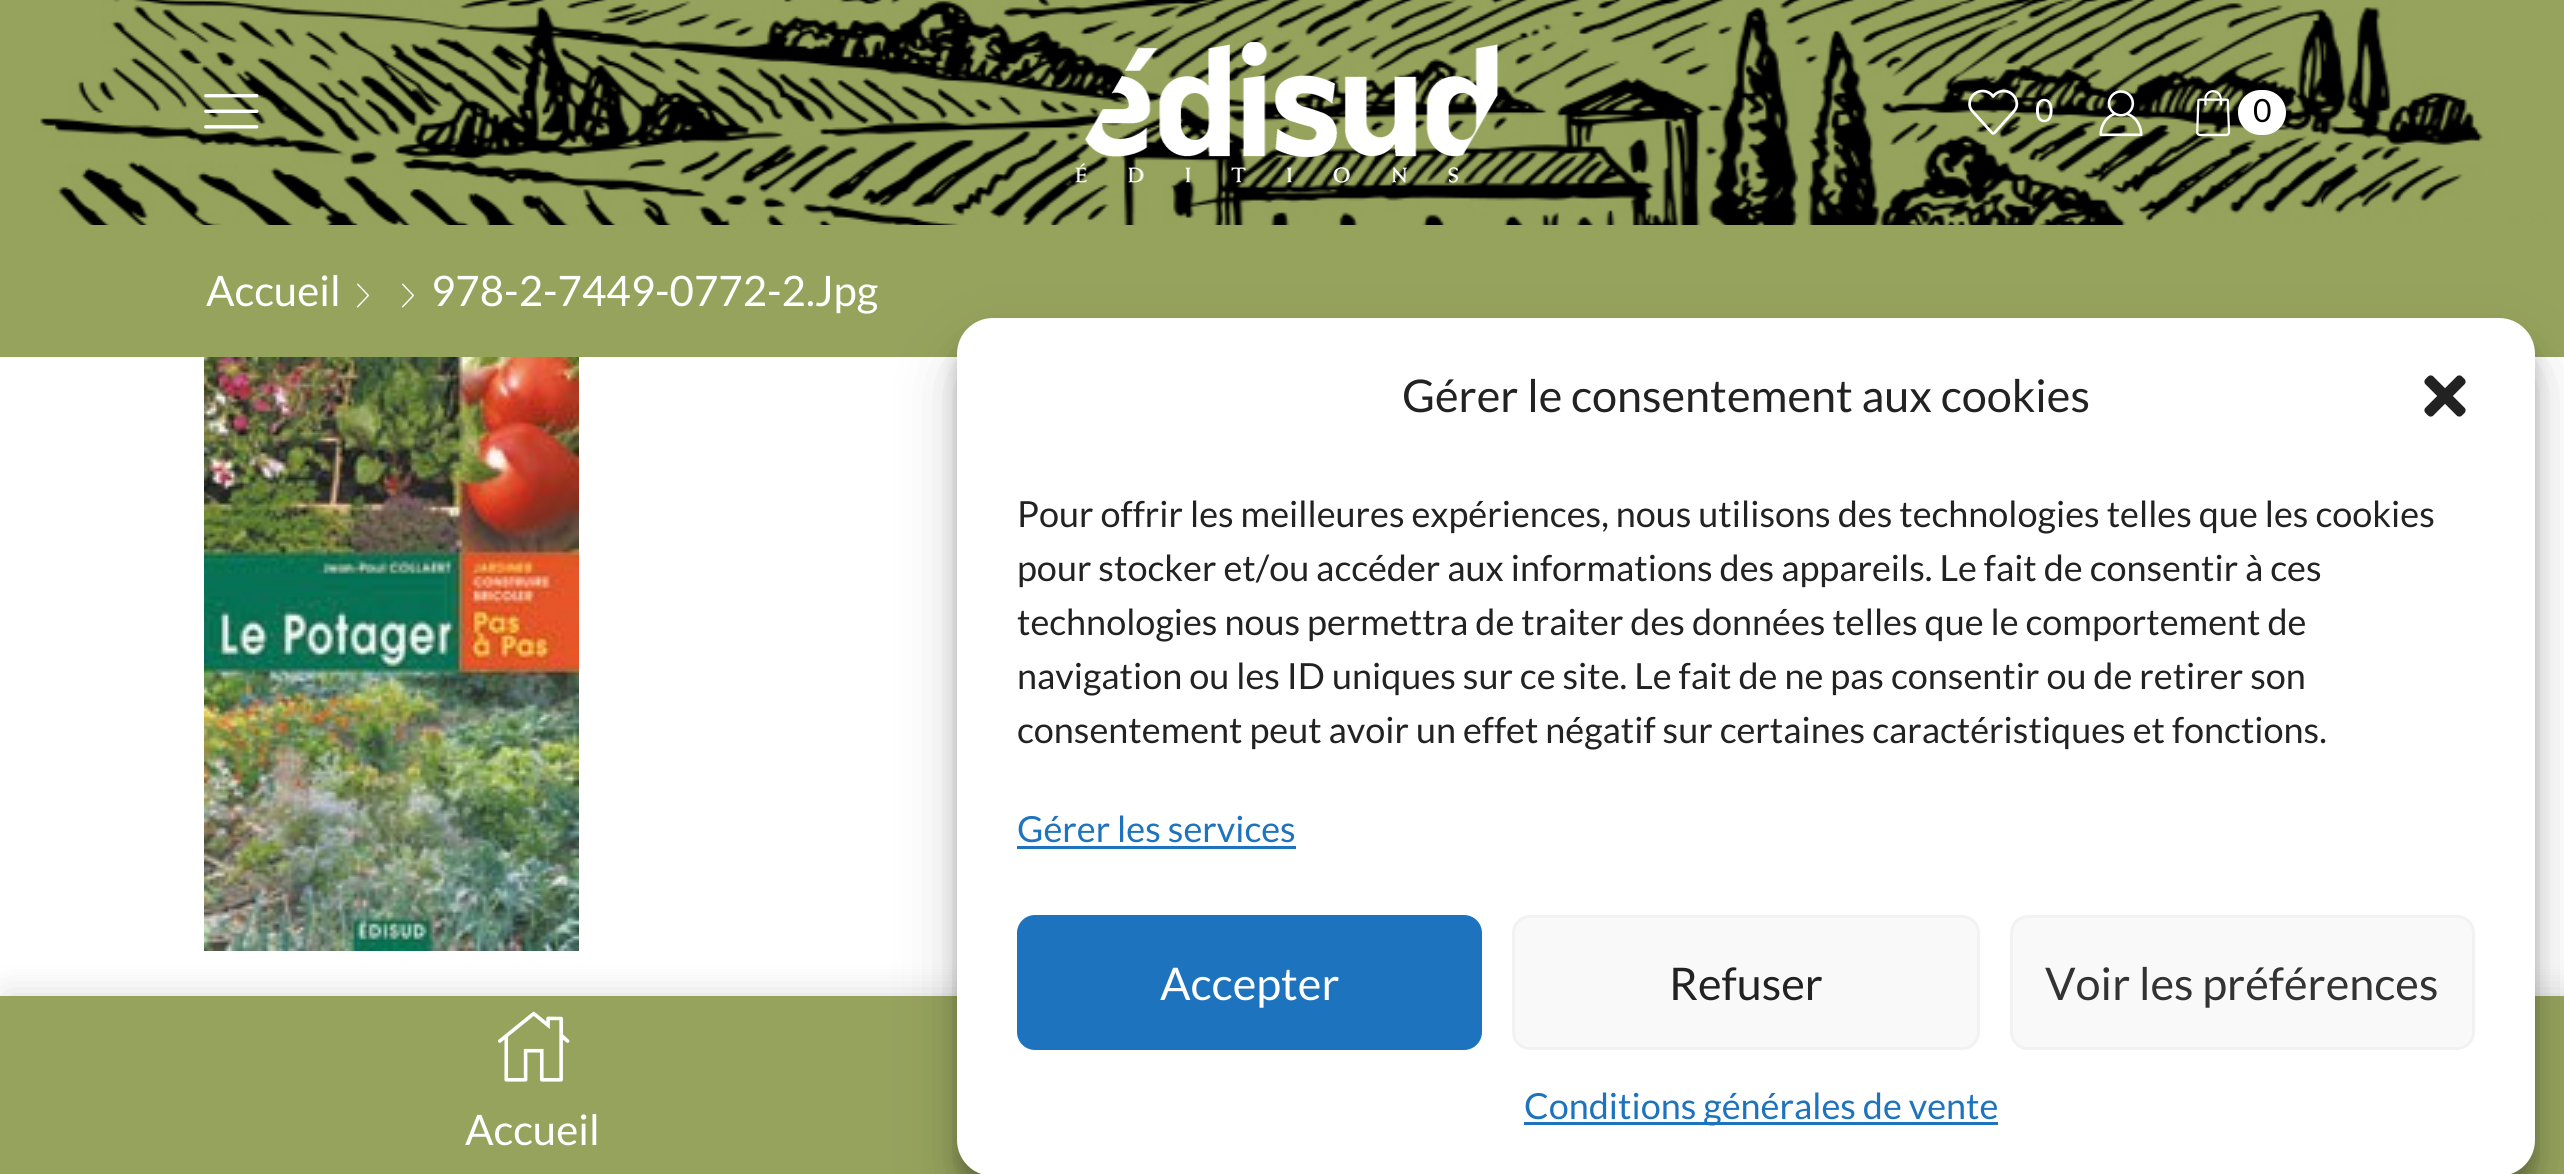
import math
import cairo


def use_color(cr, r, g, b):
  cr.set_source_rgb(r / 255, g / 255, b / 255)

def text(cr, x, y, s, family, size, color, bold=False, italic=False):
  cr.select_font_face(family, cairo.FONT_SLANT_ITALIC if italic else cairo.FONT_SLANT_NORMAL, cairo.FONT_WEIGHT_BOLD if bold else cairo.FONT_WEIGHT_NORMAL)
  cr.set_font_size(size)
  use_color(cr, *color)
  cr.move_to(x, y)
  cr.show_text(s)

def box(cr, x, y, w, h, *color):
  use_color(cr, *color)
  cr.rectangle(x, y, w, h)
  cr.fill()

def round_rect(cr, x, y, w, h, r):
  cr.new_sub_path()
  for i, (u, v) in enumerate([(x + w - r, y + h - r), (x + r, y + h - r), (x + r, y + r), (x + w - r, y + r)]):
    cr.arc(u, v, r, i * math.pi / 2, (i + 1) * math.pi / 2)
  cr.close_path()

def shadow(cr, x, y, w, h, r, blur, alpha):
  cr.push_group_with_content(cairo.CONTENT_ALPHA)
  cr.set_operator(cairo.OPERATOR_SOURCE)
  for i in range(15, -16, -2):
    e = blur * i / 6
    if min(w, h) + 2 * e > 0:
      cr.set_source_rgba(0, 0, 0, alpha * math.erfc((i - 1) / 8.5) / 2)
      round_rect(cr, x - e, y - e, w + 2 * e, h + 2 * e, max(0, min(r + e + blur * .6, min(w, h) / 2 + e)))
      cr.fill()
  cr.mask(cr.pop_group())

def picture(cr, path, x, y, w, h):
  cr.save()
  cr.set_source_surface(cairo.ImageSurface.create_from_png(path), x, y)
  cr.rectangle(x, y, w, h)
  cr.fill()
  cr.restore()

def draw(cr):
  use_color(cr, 255, 255, 255)
  cr.paint()
  picture(cr, "img_01.png", 0, 0, 2564, 225)
  picture(cr, "img_02.png", 204, 94, 55, 35)
  picture(cr, "img_03.png", 1075, 42, 424, 141)
  picture(cr, "img_04.png", 1968, 89, 51, 46)
  picture(cr, "img_05.png", 2099, 90, 44, 47)
  picture(cr, "img_06.png", 2196, 90, 35, 47)
  use_color(cr, 255, 255, 255)
  round_rect(cr, 2238, 90, 48, 45, 22.5)
  cr.fill()
  box(cr, 0, 225, 2564, 132, 150, 163, 93)
  picture(cr, "img_07.png", 357, 283, 12, 25)
  picture(cr, "img_07.png", 402, 283, 12, 25)
  picture(cr, "img_08.png", 204, 357, 375, 594)
  use_color(cr, 0, 0, 0)
  shadow(cr, 6, 996, 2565, 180, 0, 18, 0.15)
  box(cr, 0, 996, 2564, 178, 150, 163, 93)
  picture(cr, "img_09.png", 498, 1011, 72, 71)
  use_color(cr, 0, 0, 0)
  shadow(cr, 957, 336, 1578, 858, 36, 9, 0.23)
  shadow(cr, 957, 348, 1578, 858, 36, 30, 0.19)
  use_color(cr, 255, 255, 255)
  round_rect(cr, 957, 318, 1578, 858, 36)
  cr.fill()
  picture(cr, "img_10.png", 2424, 375, 42, 42)
  box(cr, 1017, 846, 279, 3, 30, 115, 190)
  round_rect(cr, 1018.5, 916.5, 462, 132, 16.5)
  cr.fill_preserve()
  cr.set_line_width(3)
  cr.stroke()
  use_color(cr, 249, 249, 249)
  round_rect(cr, 1513.5, 916.5, 465, 132, 16.5)
  cr.fill_preserve()
  use_color(cr, 242, 242, 242)
  cr.stroke()
  use_color(cr, 249, 249, 249)
  round_rect(cr, 2011.5, 916.5, 462, 132, 16.5)
  cr.fill_preserve()
  use_color(cr, 242, 242, 242)
  cr.stroke()
  box(cr, 1524, 1122, 474, 3, 30, 115, 190)
  text(cr, 2035, 122, "0", "Lato", 32, (255, 255, 255))
  text(cr, 2253, 122, "0", "Lato", 32, (0, 0, 0))
  text(cr, 206, 306, "Accueil", "Lato", 42, (255, 255, 255))
  text(cr, 431, 306, "978-2-7449-0772-2.Jpg", "Lato", 42, (255, 255, 255))
  text(cr, 465, 1145, "Accueil", "Lato", 42, (255, 255, 255))
  text(cr, 1402, 412, "Gérer le consentement aux cookies", "Lato", 45, (34, 34, 34))
  text(cr, 1017, 527, "Pour offrir les meilleures expériences, nous utilisons des technologies telles que les cookies", "Lato", 36, (34, 34, 34))
  text(cr, 1017, 581, "pour stocker et/ou accéder aux informations des appareils. Le fait de consentir à ces", "Lato", 36, (34, 34, 34))
  text(cr, 1017, 635, "technologies nous permettra de traiter des données telles que le comportement de", "Lato", 36, (34, 34, 34))
  text(cr, 1017, 689, "navigation ou les ID uniques sur ce site. Le fait de ne pas consentir ou de retirer son", "Lato", 36, (34, 34, 34))
  text(cr, 1017, 743, "consentement peut avoir un effet négatif sur certaines caractéristiques et fonctions.", "Lato", 36, (34, 34, 34))
  text(cr, 1017, 842, "Gérer les services", "Lato", 36, (30, 115, 190))
  text(cr, 1160, 1000, "Accepter", "Lato", 45, (255, 255, 255))
  text(cr, 1669, 1000, "Refuser", "Lato", 45, (34, 34, 34))
  text(cr, 2045, 1000, "Voir les préférences", "Lato", 45, (51, 51, 51))
  text(cr, 1524, 1119, "Conditions générales de vente", "Lato", 36, (30, 115, 190))


surface = cairo.ImageSurface(cairo.FORMAT_RGB24, 2564, 1174)
cr = cairo.Context(surface)
options = cairo.FontOptions()
options.set_hint_metrics(cairo.HINT_METRICS_OFF)
options.set_hint_style(cairo.HINT_STYLE_NONE)
cr.set_font_options(options)
cr.set_miter_limit(4)
draw(cr)
surface.write_to_png("out.png")
